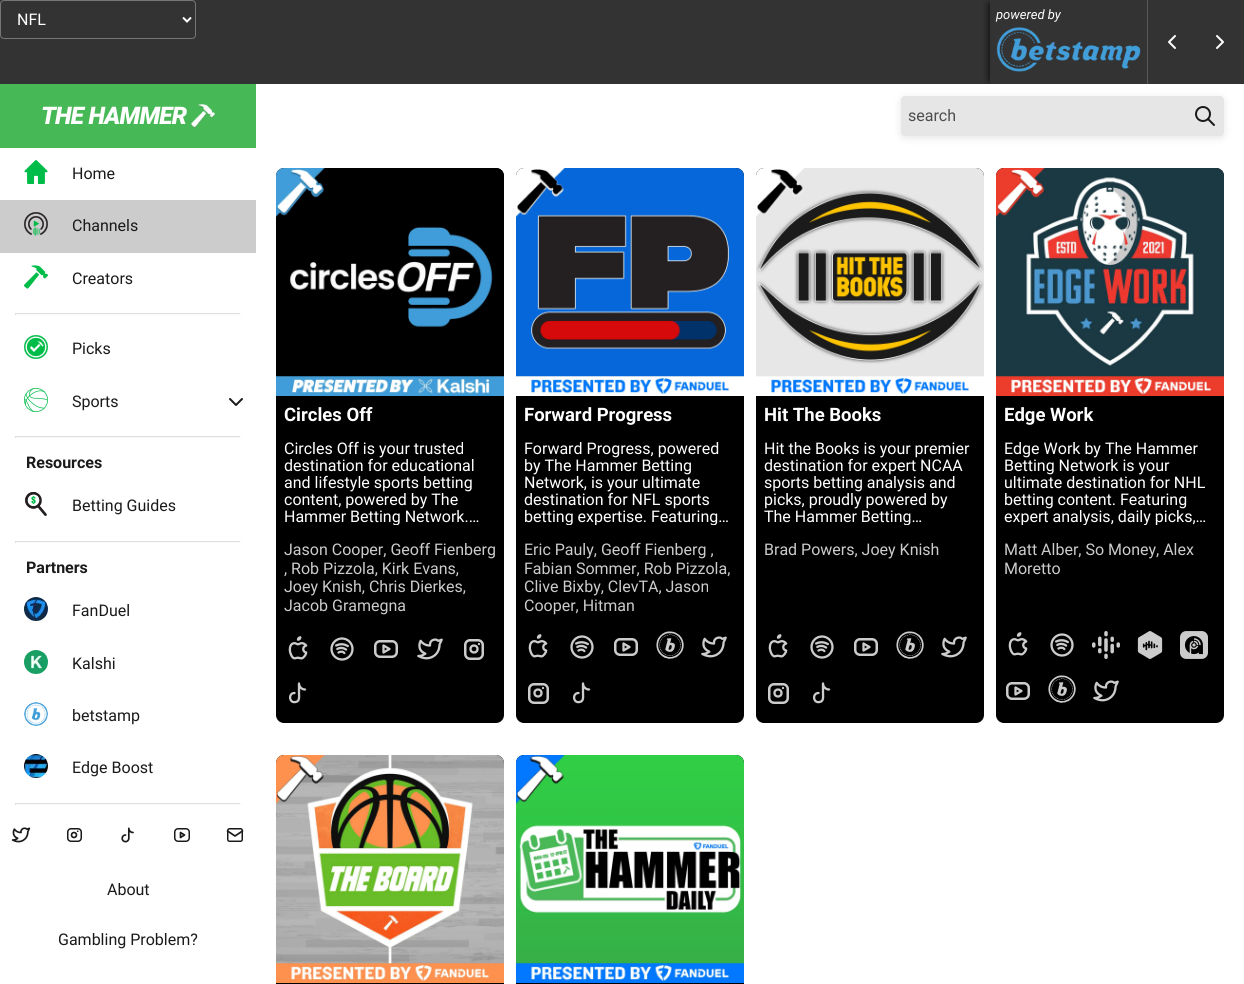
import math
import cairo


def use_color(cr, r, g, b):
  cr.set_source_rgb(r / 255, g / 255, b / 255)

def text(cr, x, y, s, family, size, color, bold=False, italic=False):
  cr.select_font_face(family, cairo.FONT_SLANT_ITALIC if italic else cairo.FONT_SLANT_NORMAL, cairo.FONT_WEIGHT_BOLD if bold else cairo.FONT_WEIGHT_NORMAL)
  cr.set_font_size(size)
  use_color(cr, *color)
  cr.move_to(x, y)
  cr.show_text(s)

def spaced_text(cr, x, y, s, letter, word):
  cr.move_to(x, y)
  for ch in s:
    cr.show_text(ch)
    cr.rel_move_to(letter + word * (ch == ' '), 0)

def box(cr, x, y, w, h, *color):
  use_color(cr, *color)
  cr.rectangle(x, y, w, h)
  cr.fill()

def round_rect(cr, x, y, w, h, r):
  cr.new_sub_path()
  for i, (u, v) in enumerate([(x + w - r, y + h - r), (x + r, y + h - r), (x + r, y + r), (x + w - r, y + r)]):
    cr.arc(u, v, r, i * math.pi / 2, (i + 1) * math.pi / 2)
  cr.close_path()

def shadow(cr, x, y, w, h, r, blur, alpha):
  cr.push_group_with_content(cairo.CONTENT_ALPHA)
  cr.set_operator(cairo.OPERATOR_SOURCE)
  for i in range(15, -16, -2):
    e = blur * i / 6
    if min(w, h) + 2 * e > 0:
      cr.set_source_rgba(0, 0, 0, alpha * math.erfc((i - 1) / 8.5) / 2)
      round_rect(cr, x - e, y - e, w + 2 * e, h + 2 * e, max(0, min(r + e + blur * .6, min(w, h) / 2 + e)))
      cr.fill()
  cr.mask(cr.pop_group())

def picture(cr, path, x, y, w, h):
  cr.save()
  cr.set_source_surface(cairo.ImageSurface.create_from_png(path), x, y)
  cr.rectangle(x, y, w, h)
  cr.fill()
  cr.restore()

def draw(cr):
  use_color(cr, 255, 255, 255)
  cr.paint()
  box(cr, 0, 0, 1244, 84, 51, 51, 51)
  round_rect(cr, 0.5, 0.5, 195, 38, 3.5)
  use_color(cr, 118, 118, 118)
  cr.set_line_width(1)
  cr.stroke()
  cr.new_path()
  cr.move_to(183, 17.5)
  cr.line_to(187, 21.5)
  cr.line_to(191, 17.5)
  use_color(cr, 255, 255, 255)
  cr.set_line_width(2)
  cr.stroke()
  cr.save()
  cr.rectangle(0, 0, 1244, 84)
  cr.clip()
  cr.rectangle(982, 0, 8, 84)
  cr.clip()
  use_color(cr, 0, 0, 0)
  shadow(cr, 990, 4, 150, 76, 0, 4, 1)
  cr.restore()
  box(cr, 1147, 0, 1, 84, 89, 89, 89)
  picture(cr, "img_01.png", 996, 27, 145, 45)
  cr.new_path()
  cr.move_to(1175, 36)
  cr.line_to(1169, 42)
  cr.line_to(1175, 48)
  cr.move_to(1217, 36)
  cr.line_to(1223, 42)
  cr.line_to(1217, 48)
  use_color(cr, 255, 255, 255)
  cr.set_line_cap(cairo.LINE_CAP_ROUND)
  cr.set_line_join(cairo.LINE_JOIN_ROUND)
  cr.stroke()
  box(cr, 0, 84, 256, 64, 71, 184, 86)
  picture(cr, "img_02.png", 191, 104, 24, 24)
  use_color(cr, 230, 230, 230)
  shadow(cr, 901, 98, 323, 40, 4, 4, 1)
  use_color(cr, 230, 230, 230)
  round_rect(cr, 901, 96, 323, 40, 4)
  cr.fill()
  cr.arc(1203, 114, 7, 0, 2 * math.pi)
  use_color(cr, 26, 26, 26)
  cr.set_line_cap(cairo.LINE_CAP_BUTT)
  cr.set_line_join(cairo.LINE_JOIN_MITER)
  cr.stroke()
  cr.new_path()
  cr.move_to(1214, 125)
  cr.line_to(1208, 119)
  cr.set_line_cap(cairo.LINE_CAP_ROUND)
  cr.set_line_join(cairo.LINE_JOIN_ROUND)
  cr.stroke()
  picture(cr, "img_03.png", 24, 160, 24, 24)
  box(cr, 0, 200, 256, 53, 204, 204, 204)
  picture(cr, "img_04.png", 24, 212, 24, 24)
  picture(cr, "img_05.png", 24, 265, 24, 24)
  box(cr, 15, 313, 226, 1, 223, 223, 223)
  box(cr, 240, 313, 1, 2, 249, 249, 249)
  box(cr, 15, 314, 226, 1, 249, 249, 249)
  box(cr, 15, 313, 1, 2, 223, 223, 223)
  picture(cr, "img_06.png", 24, 335, 24, 24)
  picture(cr, "img_07.png", 24, 388, 24, 24)
  cr.new_path()
  cr.move_to(230, 399)
  cr.line_to(236, 405)
  cr.line_to(242, 399)
  use_color(cr, 26, 26, 26)
  cr.stroke()
  box(cr, 15, 436, 226, 1, 223, 223, 223)
  box(cr, 240, 436, 1, 2, 249, 249, 249)
  box(cr, 15, 437, 226, 1, 249, 249, 249)
  box(cr, 15, 436, 1, 2, 223, 223, 223)
  picture(cr, "img_08.png", 25, 492, 22, 24)
  box(cr, 15, 541, 226, 1, 223, 223, 223)
  box(cr, 240, 541, 1, 2, 249, 249, 249)
  box(cr, 15, 542, 226, 1, 249, 249, 249)
  box(cr, 15, 541, 1, 2, 223, 223, 223)
  picture(cr, "img_09.png", 24, 597, 24, 24)
  picture(cr, "img_10.png", 24, 650, 24, 24)
  picture(cr, "img_11.png", 24, 702, 24, 24)
  picture(cr, "img_12.png", 24, 754, 24, 24)
  box(cr, 15, 803, 226, 1, 223, 223, 223)
  box(cr, 240, 803, 1, 2, 249, 249, 249)
  box(cr, 15, 804, 226, 1, 249, 249, 249)
  box(cr, 15, 803, 1, 2, 223, 223, 223)
  picture(cr, "img_13.png", 11, 827, 20, 16)
  picture(cr, "img_14.png", 67, 828, 15, 14)
  picture(cr, "img_15.png", 121, 827, 13, 16)
  round_rect(cr, 174.75, 828.75, 14.5, 12.5, 3.25)
  use_color(cr, 26, 26, 26)
  cr.set_line_width(1.5)
  cr.set_line_cap(cairo.LINE_CAP_BUTT)
  cr.set_line_join(cairo.LINE_JOIN_MITER)
  cr.stroke()
  cr.new_path()
  cr.move_to(180.5, 832.5)
  cr.line_to(184.5, 835)
  cr.line_to(180.5, 837.5)
  cr.close_path()
  cr.set_line_width(1.7)
  cr.set_line_cap(cairo.LINE_CAP_ROUND)
  cr.set_line_join(cairo.LINE_JOIN_ROUND)
  cr.stroke()
  round_rect(cr, 227.75, 828.75, 14.5, 12.5, 1.75)
  cr.set_line_width(1.5)
  cr.set_line_cap(cairo.LINE_CAP_BUTT)
  cr.set_line_join(cairo.LINE_JOIN_MITER)
  cr.stroke()
  cr.new_path()
  cr.move_to(227.5, 831)
  cr.line_to(235, 836)
  cr.line_to(242.5, 831)
  cr.set_line_width(1.7)
  cr.set_line_cap(cairo.LINE_CAP_ROUND)
  cr.set_line_join(cairo.LINE_JOIN_ROUND)
  cr.stroke()
  use_color(cr, 0, 0, 0)
  round_rect(cr, 276, 168, 228, 555, 8)
  cr.fill()
  picture(cr, "img_16.png", 276, 168, 228, 228)
  picture(cr, "img_17.png", 288, 636, 20, 24)
  picture(cr, "img_18.png", 330, 637, 24, 24)
  round_rect(cr, 375.25, 641.25, 21.5, 15.5, 4.75)
  use_color(cr, 204, 204, 204)
  cr.set_line_width(2.5)
  cr.set_line_cap(cairo.LINE_CAP_BUTT)
  cr.set_line_join(cairo.LINE_JOIN_MITER)
  cr.stroke()
  cr.new_path()
  cr.move_to(383.5, 645.5)
  cr.line_to(389.5, 649)
  cr.line_to(383.5, 652.5)
  cr.close_path()
  cr.set_line_width(2.3)
  cr.set_line_cap(cairo.LINE_CAP_ROUND)
  cr.set_line_join(cairo.LINE_JOIN_ROUND)
  cr.stroke()
  picture(cr, "img_19.png", 417, 638, 26, 22)
  round_rect(cr, 465.25, 640.25, 17.5, 18.5, 4.75)
  cr.set_line_width(2.5)
  cr.set_line_cap(cairo.LINE_CAP_BUTT)
  cr.set_line_join(cairo.LINE_JOIN_MITER)
  cr.stroke()
  cr.arc(474, 649, 3.5, 0, 2 * math.pi)
  cr.set_line_width(2.3)
  cr.stroke()
  cr.new_path()
  cr.move_to(479, 644)
  cr.line_to(479, 644)
  cr.set_line_cap(cairo.LINE_CAP_ROUND)
  cr.set_line_join(cairo.LINE_JOIN_ROUND)
  cr.stroke()
  cr.new_path()
  cr.move_to(294.5, 693)
  cr.curve_to(288, 693, 289, 703.5, 295.5, 702)
  cr.curve_to(300, 701.5, 299, 696.5, 299, 693)
  cr.line_to(299, 683.5)
  cr.curve_to(299, 687, 302, 689.5, 305, 689.5)
  cr.stroke()
  use_color(cr, 0, 0, 0)
  round_rect(cr, 516, 168, 228, 555, 8)
  cr.fill()
  picture(cr, "img_20.png", 516, 168, 228, 228)
  picture(cr, "img_17.png", 528, 634, 20, 24)
  picture(cr, "img_18.png", 570, 635, 24, 24)
  round_rect(cr, 615.25, 639.25, 21.5, 15.5, 4.75)
  use_color(cr, 204, 204, 204)
  cr.set_line_width(2.5)
  cr.set_line_cap(cairo.LINE_CAP_BUTT)
  cr.set_line_join(cairo.LINE_JOIN_MITER)
  cr.stroke()
  cr.new_path()
  cr.move_to(623.5, 643.5)
  cr.line_to(629.5, 647)
  cr.line_to(623.5, 650.5)
  cr.close_path()
  cr.set_line_width(2.3)
  cr.set_line_cap(cairo.LINE_CAP_ROUND)
  cr.set_line_join(cairo.LINE_JOIN_ROUND)
  cr.stroke()
  picture(cr, "img_21.png", 656, 631, 28, 28)
  picture(cr, "img_19.png", 701, 636, 26, 22)
  round_rect(cr, 529.25, 684.25, 18.5, 18.5, 4.75)
  cr.set_line_width(2.5)
  cr.set_line_cap(cairo.LINE_CAP_BUTT)
  cr.set_line_join(cairo.LINE_JOIN_MITER)
  cr.stroke()
  cr.arc(538, 693, 3.5, 0, 2 * math.pi)
  cr.set_line_width(2.3)
  cr.stroke()
  cr.new_path()
  cr.move_to(543, 688)
  cr.line_to(543, 688)
  cr.move_to(578.5, 693)
  cr.curve_to(572, 693, 573, 703.5, 579.5, 702)
  cr.curve_to(584, 701.5, 583, 696.5, 583, 693)
  cr.line_to(583, 683.5)
  cr.curve_to(583, 687, 586, 689.5, 589, 689.5)
  cr.set_line_cap(cairo.LINE_CAP_ROUND)
  cr.set_line_join(cairo.LINE_JOIN_ROUND)
  cr.stroke()
  use_color(cr, 0, 0, 0)
  round_rect(cr, 756, 168, 228, 555, 8)
  cr.fill()
  picture(cr, "img_22.png", 756, 168, 228, 228)
  picture(cr, "img_17.png", 768, 634, 20, 24)
  picture(cr, "img_18.png", 810, 635, 24, 24)
  round_rect(cr, 855.25, 639.25, 21.5, 15.5, 4.75)
  use_color(cr, 204, 204, 204)
  cr.set_line_width(2.5)
  cr.set_line_cap(cairo.LINE_CAP_BUTT)
  cr.set_line_join(cairo.LINE_JOIN_MITER)
  cr.stroke()
  cr.new_path()
  cr.move_to(863.5, 643.5)
  cr.line_to(869.5, 647)
  cr.line_to(863.5, 650.5)
  cr.close_path()
  cr.set_line_width(2.3)
  cr.set_line_cap(cairo.LINE_CAP_ROUND)
  cr.set_line_join(cairo.LINE_JOIN_ROUND)
  cr.stroke()
  picture(cr, "img_21.png", 896, 631, 28, 28)
  picture(cr, "img_19.png", 941, 636, 26, 22)
  round_rect(cr, 769.25, 684.25, 18.5, 18.5, 4.75)
  cr.set_line_width(2.5)
  cr.set_line_cap(cairo.LINE_CAP_BUTT)
  cr.set_line_join(cairo.LINE_JOIN_MITER)
  cr.stroke()
  cr.arc(778, 693, 3.5, 0, 2 * math.pi)
  cr.set_line_width(2.3)
  cr.stroke()
  cr.new_path()
  cr.move_to(783, 688)
  cr.line_to(783, 688)
  cr.move_to(818.5, 693)
  cr.curve_to(812, 693, 813, 703.5, 819.5, 702)
  cr.curve_to(824, 701.5, 823, 696.5, 823, 693)
  cr.line_to(823, 683.5)
  cr.curve_to(823, 687, 826, 689.5, 829, 689.5)
  cr.set_line_cap(cairo.LINE_CAP_ROUND)
  cr.set_line_join(cairo.LINE_JOIN_ROUND)
  cr.stroke()
  use_color(cr, 0, 0, 0)
  round_rect(cr, 996, 168, 228, 555, 8)
  cr.fill()
  picture(cr, "img_23.png", 996, 168, 228, 228)
  picture(cr, "img_17.png", 1008, 632, 20, 24)
  picture(cr, "img_18.png", 1050, 633, 24, 24)
  picture(cr, "img_24.png", 1092, 631, 28, 28)
  picture(cr, "img_25.png", 1137, 631, 26, 28)
  picture(cr, "img_26.png", 1180, 631, 28, 28)
  round_rect(cr, 1007.25, 683.25, 21.5, 15.5, 4.75)
  use_color(cr, 204, 204, 204)
  cr.set_line_width(2.5)
  cr.set_line_cap(cairo.LINE_CAP_BUTT)
  cr.set_line_join(cairo.LINE_JOIN_MITER)
  cr.stroke()
  cr.new_path()
  cr.move_to(1015.5, 687.5)
  cr.line_to(1021.5, 691)
  cr.line_to(1015.5, 694.5)
  cr.close_path()
  cr.set_line_width(2.3)
  cr.set_line_cap(cairo.LINE_CAP_ROUND)
  cr.set_line_join(cairo.LINE_JOIN_ROUND)
  cr.stroke()
  picture(cr, "img_21.png", 1048, 675, 28, 28)
  picture(cr, "img_19.png", 1093, 680, 26, 22)
  use_color(cr, 0, 0, 0)
  round_rect(cr, 276, 755, 228, 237, 8)
  cr.fill()
  picture(cr, "img_27.png", 276, 755, 228, 228)
  round_rect(cr, 516, 755, 228, 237, 8)
  cr.fill()
  picture(cr, "img_28.png", 516, 755, 228, 228)
  text(cr, 17, 25, "NFL", "Roboto", 16, (255, 255, 255))
  text(cr, 996, 19, "powered by", "Roboto", 13, (255, 255, 255), italic=True)
  cr.select_font_face("Roboto Black", cairo.FONT_SLANT_ITALIC)
  cr.set_font_size(24.25)
  spaced_text(cr, 41, 124, "THE HAMMER", -0.75, 0)
  text(cr, 908, 121, "search", "Roboto", 16, (77, 77, 77))
  text(cr, 72, 179, "Home", "Roboto", 16, (26, 26, 26))
  text(cr, 72, 231, "Channels", "Roboto", 16, (26, 26, 26))
  text(cr, 72, 284, "Creators", "Roboto", 16, (26, 26, 26))
  text(cr, 72, 354, "Picks", "Roboto", 16, (26, 26, 26))
  text(cr, 72, 407, "Sports", "Roboto", 16, (26, 26, 26))
  text(cr, 26, 468, "Resources", "Roboto", 16, (26, 26, 26), bold=True)
  text(cr, 72, 511, "Betting Guides", "Roboto", 16, (26, 26, 26))
  text(cr, 26, 573, "Partners", "Roboto", 16, (26, 26, 26), bold=True)
  text(cr, 72, 616, "FanDuel", "Roboto", 16, (26, 26, 26))
  text(cr, 72, 669, "Kalshi", "Roboto", 16, (26, 26, 26))
  text(cr, 72, 721, "betstamp", "Roboto", 16, (26, 26, 26))
  text(cr, 72, 773, "Edge Boost", "Roboto", 16, (26, 26, 26))
  text(cr, 107, 895, "About", "Roboto", 16, (26, 26, 26))
  text(cr, 58, 945, "Gambling Problem?", "Roboto", 16, (26, 26, 26))
  text(cr, 284, 421, "Circles Off", "Roboto", 18.5, (255, 255, 255), bold=True)
  text(cr, 284, 454, "Circles Off is your trusted", "Roboto", 16, (255, 255, 255))
  text(cr, 284, 471, "destination for educational", "Roboto", 16, (255, 255, 255))
  text(cr, 284, 488, "and lifestyle sports betting", "Roboto", 16, (255, 255, 255))
  text(cr, 284, 505, "content, powered by The", "Roboto", 16, (255, 255, 255))
  cr.save()
  cr.rectangle(284, 441, 212, 84)
  cr.clip()
  text(cr, 284, 522, "Hammer Betting Network.…", "Roboto", 16, (255, 255, 255))
  cr.restore()
  text(cr, 284, 555, "Jason Cooper, Geoff Fienberg", "Roboto", 16, (204, 204, 204))
  text(cr, 284, 574, ", Rob Pizzola, Kirk Evans,", "Roboto", 16, (204, 204, 204))
  text(cr, 284, 592, "Joey Knish, Chris Dierkes,", "Roboto", 16, (204, 204, 204))
  text(cr, 284, 611, "Jacob Gramegna", "Roboto", 16, (204, 204, 204))
  text(cr, 524, 421, "Forward Progress", "Roboto", 18.5, (255, 255, 255), bold=True)
  text(cr, 524, 454, "Forward Progress, powered", "Roboto", 16, (255, 255, 255))
  text(cr, 524, 471, "by The Hammer Betting", "Roboto", 16, (255, 255, 255))
  text(cr, 524, 488, "Network, is your ultimate", "Roboto", 16, (255, 255, 255))
  text(cr, 524, 505, "destination for NFL sports", "Roboto", 16, (255, 255, 255))
  cr.save()
  cr.rectangle(524, 441, 212, 84)
  cr.clip()
  text(cr, 524, 522, "betting expertise. Featuring…", "Roboto", 16, (255, 255, 255))
  cr.restore()
  text(cr, 524, 555, "Eric Pauly, Geoff Fienberg ,", "Roboto", 16, (204, 204, 204))
  text(cr, 524, 574, "Fabian Sommer, Rob Pizzola,", "Roboto", 16, (204, 204, 204))
  text(cr, 524, 592, "Clive Bixby, ClevTA, Jason", "Roboto", 16, (204, 204, 204))
  text(cr, 524, 611, "Cooper, Hitman", "Roboto", 16, (204, 204, 204))
  text(cr, 764, 421, "Hit The Books", "Roboto", 18.5, (255, 255, 255), bold=True)
  text(cr, 764, 454, "Hit the Books is your premier", "Roboto", 16, (255, 255, 255))
  text(cr, 764, 471, "destination for expert NCAA", "Roboto", 16, (255, 255, 255))
  text(cr, 764, 488, "sports betting analysis and", "Roboto", 16, (255, 255, 255))
  text(cr, 764, 505, "picks, proudly powered by", "Roboto", 16, (255, 255, 255))
  cr.save()
  cr.rectangle(764, 441, 212, 84)
  cr.clip()
  text(cr, 764, 522, "The Hammer Betting…", "Roboto", 16, (255, 255, 255))
  cr.restore()
  text(cr, 764, 555, "Brad Powers, Joey Knish", "Roboto", 16, (204, 204, 204))
  text(cr, 1004, 421, "Edge Work", "Roboto", 18.5, (255, 255, 255), bold=True)
  text(cr, 1004, 454, "Edge Work by The Hammer", "Roboto", 16, (255, 255, 255))
  text(cr, 1004, 471, "Betting Network is your", "Roboto", 16, (255, 255, 255))
  text(cr, 1004, 488, "ultimate destination for NHL", "Roboto", 16, (255, 255, 255))
  text(cr, 1004, 505, "betting content. Featuring", "Roboto", 16, (255, 255, 255))
  cr.save()
  cr.rectangle(1004, 441, 212, 84)
  cr.clip()
  text(cr, 1004, 522, "expert analysis, daily picks,…", "Roboto", 16, (255, 255, 255))
  cr.restore()
  text(cr, 1004, 555, "Matt Alber, So Money, Alex", "Roboto", 16, (204, 204, 204))
  text(cr, 1004, 574, "Moretto", "Roboto", 16, (204, 204, 204))


surface = cairo.ImageSurface(cairo.FORMAT_RGB24, 1244, 984)
cr = cairo.Context(surface)
options = cairo.FontOptions()
options.set_hint_metrics(cairo.HINT_METRICS_OFF)
options.set_hint_style(cairo.HINT_STYLE_NONE)
cr.set_font_options(options)
cr.set_miter_limit(4)
draw(cr)
surface.write_to_png("out.png")
